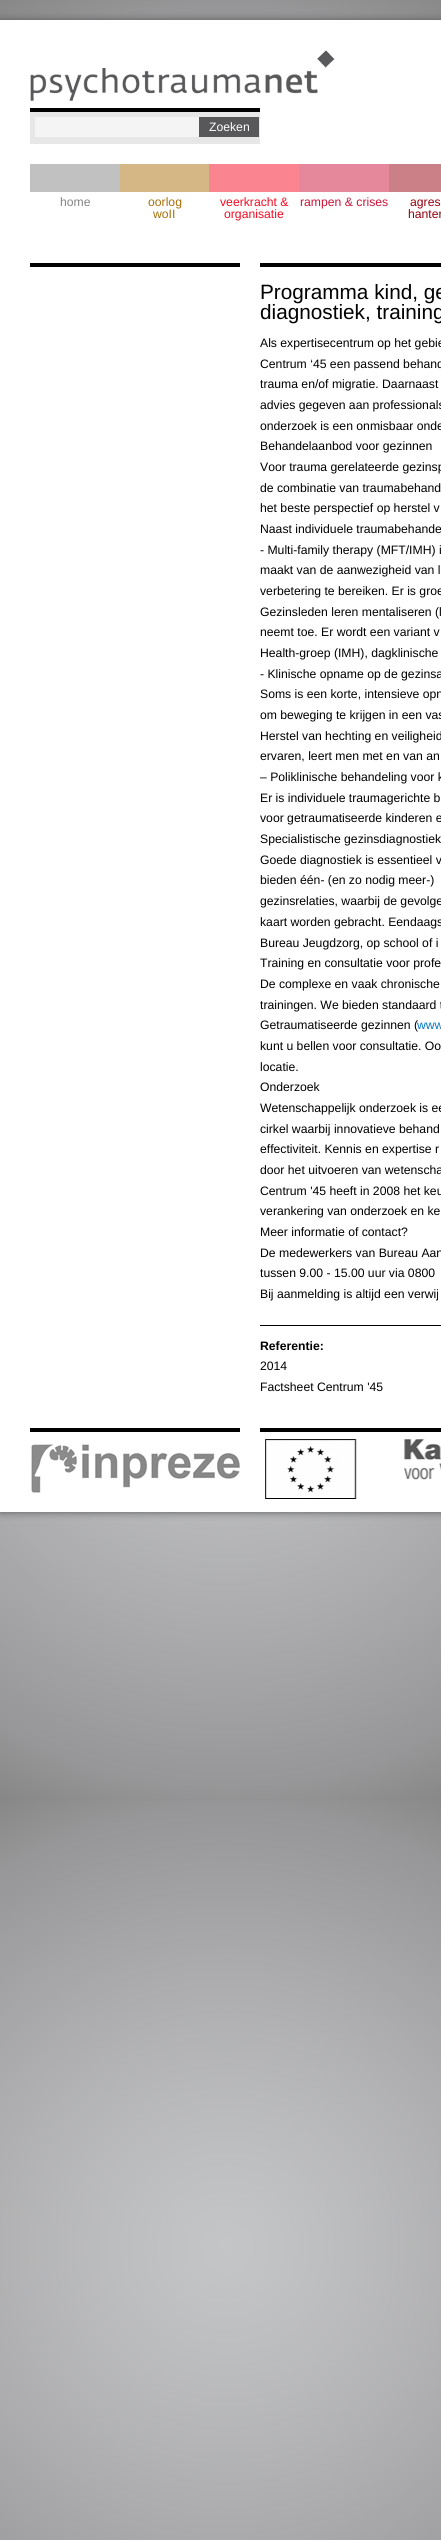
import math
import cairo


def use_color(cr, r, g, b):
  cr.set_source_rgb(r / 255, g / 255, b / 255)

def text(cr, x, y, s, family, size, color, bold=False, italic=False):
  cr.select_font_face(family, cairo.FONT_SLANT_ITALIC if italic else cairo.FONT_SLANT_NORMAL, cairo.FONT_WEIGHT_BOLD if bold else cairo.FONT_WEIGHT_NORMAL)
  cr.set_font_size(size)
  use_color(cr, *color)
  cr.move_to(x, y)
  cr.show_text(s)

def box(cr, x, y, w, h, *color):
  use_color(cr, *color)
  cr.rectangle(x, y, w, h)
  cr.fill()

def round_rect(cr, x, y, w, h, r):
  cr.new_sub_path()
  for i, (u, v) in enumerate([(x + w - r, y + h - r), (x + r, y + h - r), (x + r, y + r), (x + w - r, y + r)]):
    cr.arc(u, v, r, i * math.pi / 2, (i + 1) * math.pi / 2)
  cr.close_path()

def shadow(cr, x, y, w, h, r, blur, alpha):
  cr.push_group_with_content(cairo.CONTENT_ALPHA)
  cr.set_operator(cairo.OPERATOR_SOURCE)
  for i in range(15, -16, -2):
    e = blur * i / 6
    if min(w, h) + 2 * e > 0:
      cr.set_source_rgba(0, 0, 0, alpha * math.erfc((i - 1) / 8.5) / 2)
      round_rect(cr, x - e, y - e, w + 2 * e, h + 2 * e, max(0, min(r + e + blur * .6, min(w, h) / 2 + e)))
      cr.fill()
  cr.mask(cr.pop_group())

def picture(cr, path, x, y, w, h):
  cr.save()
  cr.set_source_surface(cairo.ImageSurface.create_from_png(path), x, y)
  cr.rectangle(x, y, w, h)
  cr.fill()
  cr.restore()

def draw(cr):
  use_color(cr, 255, 255, 255)
  cr.paint()
  picture(cr, "img_01.png", 0, 0, 441, 2540)
  use_color(cr, 88, 88, 90)
  shadow(cr, 0, 20, 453, 1492, 0, 4, 1)
  box(cr, 0, 20, 441, 1492, 255, 255, 255)
  picture(cr, "img_02.png", 30, 50, 305, 51)
  box(cr, 30, 112, 230, 32, 231, 231, 232)
  box(cr, 30, 108, 230, 4, 0, 0, 0)
  box(cr, 35, 117, 164, 20, 244, 244, 245)
  box(cr, 199, 117, 60, 20, 88, 88, 90)
  box(cr, 30, 164, 90, 28, 193, 193, 193)
  box(cr, 120, 164, 89, 28, 212, 183, 133)
  box(cr, 209, 164, 90, 28, 250, 133, 144)
  box(cr, 299, 164, 90, 28, 230, 136, 155)
  box(cr, 389, 164, 52, 28, 202, 128, 134)
  box(cr, 30, 263, 210, 4, 0, 0, 0)
  box(cr, 30, 1428, 210, 4, 0, 0, 0)
  box(cr, 260, 263, 181, 4, 0, 0, 0)
  box(cr, 260, 1325, 181, 1, 0, 0, 0)
  picture(cr, "img_03.png", 31, 1444, 209, 49)
  box(cr, 260, 1428, 181, 4, 0, 0, 0)
  picture(cr, "img_04.png", 265, 1439, 176, 60)
  text(cr, 209, 131, "Zoeken", "Liberation Sans", 12.2, (255, 255, 255))
  text(cr, 60, 206, "home", "Liberation Sans", 12.2, (132, 132, 132))
  text(cr, 148, 206, "oorlog", "Liberation Sans", 12.2, (169, 111, 11))
  text(cr, 153, 218, "woII", "Liberation Sans", 12.2, (169, 111, 11))
  text(cr, 220, 206, "veerkracht &", "Liberation Sans", 12.2, (246, 11, 34))
  text(cr, 224, 218, "organisatie", "Liberation Sans", 12.2, (246, 11, 34))
  text(cr, 300, 206, "rampen & crises", "Liberation Sans", 12.2, (206, 18, 56))
  text(cr, 410, 206, "agres", "Liberation Sans", 12.2, (149, 1, 14))
  text(cr, 408, 218, "hanter", "Liberation Sans", 12.2, (149, 1, 14))
  text(cr, 260, 299, "Programma kind, ge", "Liberation Sans", 20.75, (0, 0, 0))
  text(cr, 260, 319, "diagnostiek, training", "Liberation Sans", 20.75, (0, 0, 0))
  text(cr, 260, 347, "Als expertisecentrum op het gebie", "Liberation Sans", 12.2, (0, 0, 0))
  text(cr, 260, 368, "Centrum ‘45 een passend behand", "Liberation Sans", 12.2, (0, 0, 0))
  text(cr, 260, 388, "trauma en/of migratie. Daarnaast", "Liberation Sans", 12.2, (0, 0, 0))
  text(cr, 260, 409, "advies gegeven aan professionals", "Liberation Sans", 12.2, (0, 0, 0))
  text(cr, 260, 430, "onderzoek is een onmisbaar onde", "Liberation Sans", 12.2, (0, 0, 0))
  text(cr, 260, 450, "Behandelaanbod voor gezinnen", "Liberation Sans", 12.2, (0, 0, 0))
  text(cr, 260, 471, "Voor trauma gerelateerde gezinsp", "Liberation Sans", 12.2, (0, 0, 0))
  text(cr, 260, 492, "de combinatie van traumabehand", "Liberation Sans", 12.2, (0, 0, 0))
  text(cr, 260, 512, "het beste perspectief op herstel v", "Liberation Sans", 12.2, (0, 0, 0))
  text(cr, 260, 533, "Naast individuele traumabehande", "Liberation Sans", 12.2, (0, 0, 0))
  text(cr, 260, 554, "- Multi-family therapy (MFT/IMH) i", "Liberation Sans", 12.2, (0, 0, 0))
  text(cr, 260, 574, "maakt van de aanwezigheid van l", "Liberation Sans", 12.2, (0, 0, 0))
  text(cr, 260, 595, "verbetering te bereiken. Er is groe", "Liberation Sans", 12.2, (0, 0, 0))
  text(cr, 260, 616, "Gezinsleden leren mentaliseren (l", "Liberation Sans", 12.2, (0, 0, 0))
  text(cr, 260, 636, "neemt toe. Er wordt een variant v", "Liberation Sans", 12.2, (0, 0, 0))
  text(cr, 260, 657, "Health-groep (IMH), dagklinische", "Liberation Sans", 12.2, (0, 0, 0))
  text(cr, 260, 678, "- Klinische opname op de gezinsa", "Liberation Sans", 12.2, (0, 0, 0))
  text(cr, 260, 698, "Soms is een korte, intensieve opn", "Liberation Sans", 12.2, (0, 0, 0))
  text(cr, 260, 719, "om beweging te krijgen in een vas", "Liberation Sans", 12.2, (0, 0, 0))
  text(cr, 260, 740, "Herstel van hechting en veiligheid", "Liberation Sans", 12.2, (0, 0, 0))
  text(cr, 260, 760, "ervaren, leert men met en van an", "Liberation Sans", 12.2, (0, 0, 0))
  text(cr, 260, 781, "– Poliklinische behandeling voor k", "Liberation Sans", 12.2, (0, 0, 0))
  text(cr, 260, 802, "Er is individuele traumagerichte b", "Liberation Sans", 12.2, (0, 0, 0))
  text(cr, 260, 822, "voor getraumatiseerde kinderen e", "Liberation Sans", 12.2, (0, 0, 0))
  text(cr, 260, 843, "Specialistische gezinsdiagnostiek", "Liberation Sans", 12.2, (0, 0, 0))
  text(cr, 260, 864, "Goede diagnostiek is essentieel v", "Liberation Sans", 12.2, (0, 0, 0))
  text(cr, 260, 884, "bieden één- (en zo nodig meer-)", "Liberation Sans", 12.2, (0, 0, 0))
  text(cr, 260, 905, "gezinsrelaties, waarbij de gevolge", "Liberation Sans", 12.2, (0, 0, 0))
  text(cr, 260, 926, "kaart worden gebracht. Eendaags", "Liberation Sans", 12.2, (0, 0, 0))
  text(cr, 260, 947, "Bureau Jeugdzorg, op school of i", "Liberation Sans", 12.2, (0, 0, 0))
  text(cr, 260, 967, "Training en consultatie voor profe", "Liberation Sans", 12.2, (0, 0, 0))
  text(cr, 260, 988, "De complexe en vaak chronische", "Liberation Sans", 12.2, (0, 0, 0))
  text(cr, 260, 1009, "trainingen. We bieden standaard t", "Liberation Sans", 12.2, (0, 0, 0))
  text(cr, 260, 1029, "Getraumatiseerde gezinnen (", "Liberation Sans", 12.2, (0, 0, 0))
  text(cr, 417, 1029, "www", "Liberation Sans", 12.2, (2, 122, 198))
  text(cr, 260, 1050, "kunt u bellen voor consultatie. Oo", "Liberation Sans", 12.2, (0, 0, 0))
  text(cr, 260, 1071, "locatie.", "Liberation Sans", 12.2, (0, 0, 0))
  text(cr, 260, 1091, "Onderzoek", "Liberation Sans", 12.2, (0, 0, 0))
  text(cr, 260, 1112, "Wetenschappelijk onderzoek is ee", "Liberation Sans", 12.2, (0, 0, 0))
  text(cr, 260, 1133, "cirkel waarbij innovatieve behand", "Liberation Sans", 12.2, (0, 0, 0))
  text(cr, 260, 1153, "effectiviteit. Kennis en expertise r", "Liberation Sans", 12.2, (0, 0, 0))
  text(cr, 260, 1174, "door het uitvoeren van wetenscha", "Liberation Sans", 12.2, (0, 0, 0))
  text(cr, 260, 1195, "Centrum '45 heeft in 2008 het keu", "Liberation Sans", 12.2, (0, 0, 0))
  text(cr, 260, 1215, "verankering van onderzoek en ke", "Liberation Sans", 12.2, (0, 0, 0))
  text(cr, 260, 1236, "Meer informatie of contact?", "Liberation Sans", 12.2, (0, 0, 0))
  text(cr, 260, 1257, "De medewerkers van Bureau Aan", "Liberation Sans", 12.2, (0, 0, 0))
  text(cr, 260, 1277, "tussen 9.00 - 15.00 uur via 0800", "Liberation Sans", 12.2, (0, 0, 0))
  text(cr, 260, 1298, "Bij aanmelding is altijd een verwij", "Liberation Sans", 12.2, (0, 0, 0))
  text(cr, 260, 1350, "Referentie:", "Liberation Sans", 12.2, (0, 0, 0), bold=True)
  text(cr, 260, 1370, "2014", "Liberation Sans", 12.2, (0, 0, 0))
  text(cr, 260, 1391, "Factsheet Centrum '45", "Liberation Sans", 12.2, (0, 0, 0))


surface = cairo.ImageSurface(cairo.FORMAT_RGB24, 441, 2540)
cr = cairo.Context(surface)
options = cairo.FontOptions()
options.set_hint_metrics(cairo.HINT_METRICS_OFF)
options.set_hint_style(cairo.HINT_STYLE_NONE)
cr.set_font_options(options)
cr.set_miter_limit(4)
draw(cr)
surface.write_to_png("out.png")
